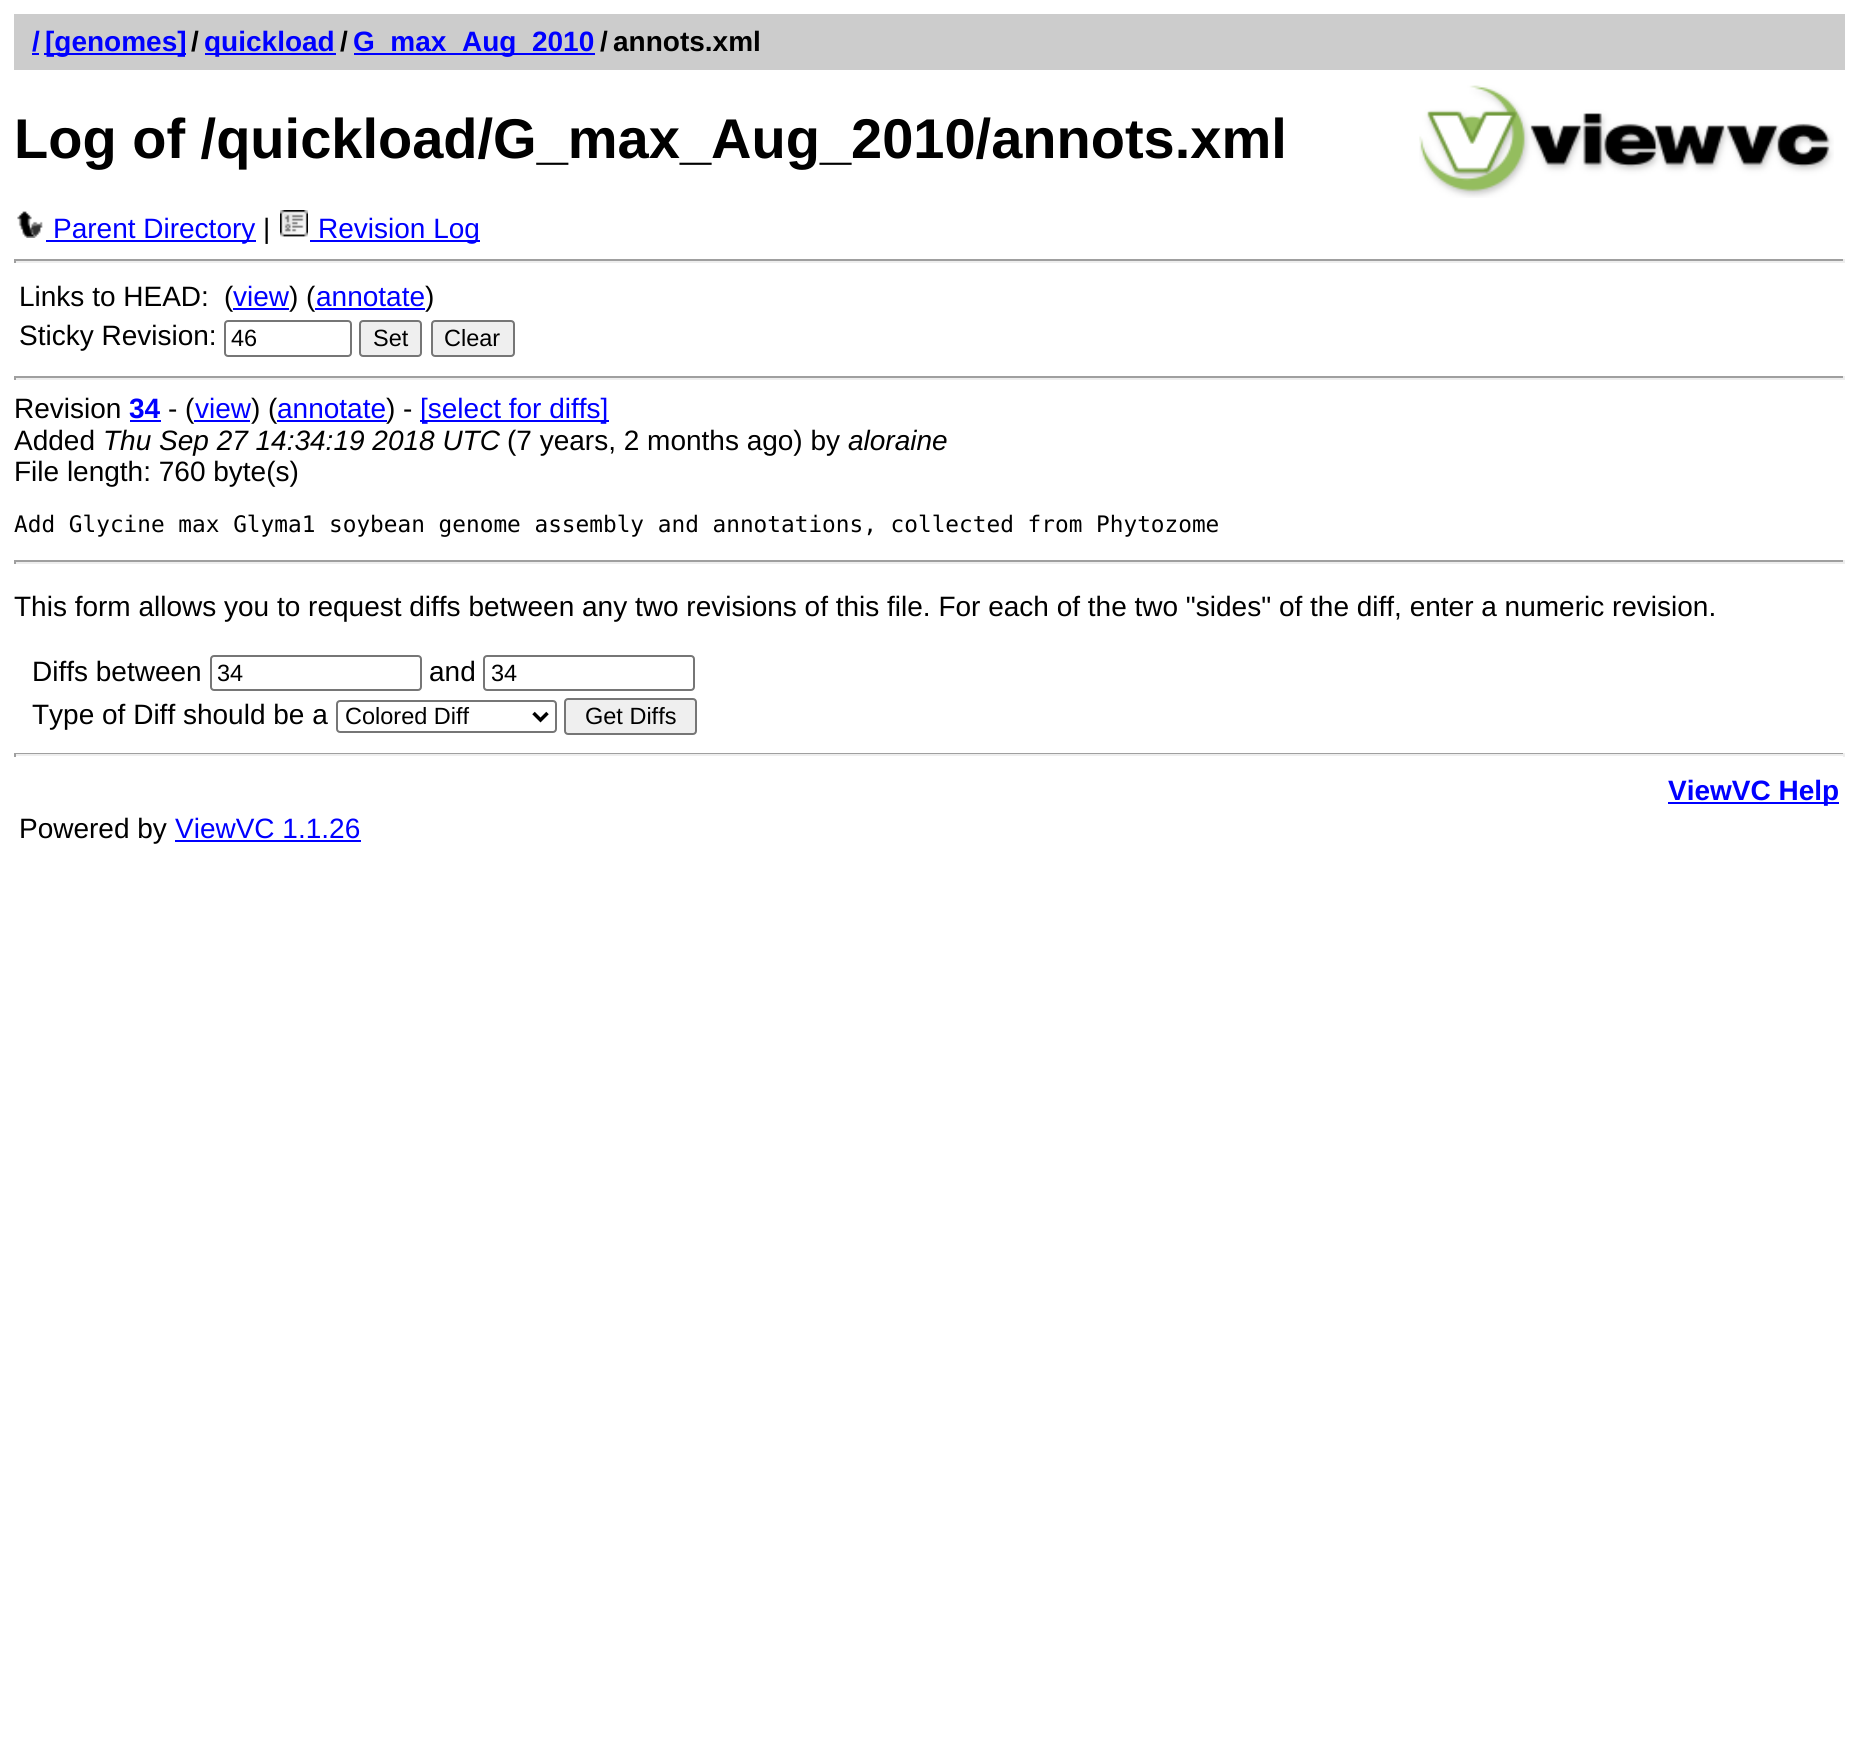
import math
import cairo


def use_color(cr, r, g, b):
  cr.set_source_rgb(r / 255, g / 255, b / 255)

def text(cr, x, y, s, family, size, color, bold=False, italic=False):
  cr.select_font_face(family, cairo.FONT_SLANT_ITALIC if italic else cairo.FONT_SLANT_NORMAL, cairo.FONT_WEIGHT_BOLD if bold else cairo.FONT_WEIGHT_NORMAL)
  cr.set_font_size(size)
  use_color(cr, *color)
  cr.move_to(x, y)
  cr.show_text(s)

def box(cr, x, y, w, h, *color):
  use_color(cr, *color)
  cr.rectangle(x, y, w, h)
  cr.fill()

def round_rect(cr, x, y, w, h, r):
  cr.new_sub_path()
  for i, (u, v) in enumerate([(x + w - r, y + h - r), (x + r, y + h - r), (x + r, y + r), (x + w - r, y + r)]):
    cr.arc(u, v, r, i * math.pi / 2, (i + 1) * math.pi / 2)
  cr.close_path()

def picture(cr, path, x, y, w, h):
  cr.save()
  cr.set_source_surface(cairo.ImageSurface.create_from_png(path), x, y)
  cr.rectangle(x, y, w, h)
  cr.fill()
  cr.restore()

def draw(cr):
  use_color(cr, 255, 255, 255)
  cr.paint()
  box(cr, 14, 14, 1831, 56, 204, 204, 204)
  box(cr, 32, 53, 7, 2, 0, 0, 255)
  box(cr, 44, 53, 142, 2, 0, 0, 255)
  box(cr, 205, 53, 131, 2, 0, 0, 255)
  box(cr, 354, 53, 241, 2, 0, 0, 255)
  picture(cr, "img_01.png", 1419, 85, 415, 113)
  picture(cr, "img_02.png", 17, 211, 26, 27)
  box(cr, 46, 240, 210, 2, 0, 0, 255)
  picture(cr, "img_03.png", 280, 210, 28, 27)
  box(cr, 310, 240, 170, 2, 0, 0, 255)
  box(cr, 14, 259, 1831, 2, 159, 159, 159)
  box(cr, 1843, 259, 2, 4, 238, 238, 238)
  box(cr, 14, 261, 1831, 2, 238, 238, 238)
  box(cr, 14, 259, 2, 4, 159, 159, 159)
  box(cr, 233, 308, 56, 2, 0, 0, 255)
  round_rect(cr, 225, 321, 126, 35, 3)
  use_color(cr, 118, 118, 118)
  cr.stroke()
  use_color(cr, 239, 239, 239)
  round_rect(cr, 360, 321, 61, 35, 3)
  cr.fill_preserve()
  use_color(cr, 118, 118, 118)
  cr.stroke()
  use_color(cr, 239, 239, 239)
  round_rect(cr, 432, 321, 82, 35, 3)
  cr.fill_preserve()
  use_color(cr, 118, 118, 118)
  cr.stroke()
  box(cr, 14, 376, 1831, 2, 159, 159, 159)
  box(cr, 1843, 376, 2, 4, 238, 238, 238)
  box(cr, 14, 378, 1831, 2, 238, 238, 238)
  box(cr, 14, 376, 2, 4, 159, 159, 159)
  box(cr, 130, 420, 31, 2, 0, 0, 255)
  box(cr, 277, 420, 110, 2, 0, 0, 255)
  box(cr, 420, 420, 189, 2, 0, 0, 255)
  box(cr, 14, 560, 1831, 2, 159, 159, 159)
  box(cr, 1843, 560, 2, 4, 238, 238, 238)
  box(cr, 14, 562, 1831, 2, 238, 238, 238)
  box(cr, 14, 560, 2, 4, 159, 159, 159)
  round_rect(cr, 211, 656, 210, 34, 3)
  use_color(cr, 118, 118, 118)
  cr.stroke()
  round_rect(cr, 484, 656, 210, 34, 3)
  cr.stroke()
  round_rect(cr, 337, 701, 219, 31, 3)
  cr.stroke()
  cr.new_path()
  cr.move_to(533.5, 713)
  cr.line_to(540.5, 720)
  cr.line_to(547.5, 713)
  use_color(cr, 0, 0, 0)
  cr.set_line_width(3.5)
  cr.stroke()
  use_color(cr, 239, 239, 239)
  round_rect(cr, 565, 699, 131, 35, 3)
  cr.fill_preserve()
  use_color(cr, 118, 118, 118)
  cr.set_line_width(2)
  cr.stroke()
  box(cr, 14, 753, 1831, 1, 159, 159, 159)
  box(cr, 1843, 753, 2, 4, 238, 238, 238)
  box(cr, 14, 754, 1831, 2, 238, 238, 238)
  box(cr, 14, 753, 2, 4, 159, 159, 159)
  box(cr, 1668, 802, 171, 2, 0, 0, 255)
  box(cr, 175, 840, 186, 2, 0, 0, 255)
  text(cr, 32, 51, "/", "Liberation Sans", 28, (0, 0, 255), bold=True)
  text(cr, 45, 51, "[genomes]", "Liberation Sans", 28, (0, 0, 255), bold=True)
  text(cr, 191, 51, "/", "Liberation Sans", 28, (0, 0, 0), bold=True)
  text(cr, 204, 51, "quickload", "Liberation Sans", 28, (0, 0, 255), bold=True)
  text(cr, 340, 51, "/", "Liberation Sans", 28, (0, 0, 0), bold=True)
  text(cr, 353, 51, "G_max_Aug_2010", "Liberation Sans", 28, (0, 0, 255), bold=True)
  text(cr, 600, 51, "/", "Liberation Sans", 28, (0, 0, 0), bold=True)
  text(cr, 613, 51, "annots.xml", "Liberation Sans", 28, (0, 0, 0), bold=True)
  text(cr, 14, 158, "Log of /quickload/G_max_Aug_2010/annots.xml", "Liberation Sans", 56, (0, 0, 0), bold=True)
  text(cr, 53, 238, "Parent Directory", "Liberation Sans", 28, (0, 0, 255))
  text(cr, 263, 238, "|", "Liberation Sans", 28, (0, 0, 0))
  text(cr, 318, 238, "Revision Log", "Liberation Sans", 28, (0, 0, 255))
  text(cr, 19, 306, "Links to HEAD:", "Liberation Sans", 28, (0, 0, 0))
  text(cr, 224, 306, "(", "Liberation Sans", 28, (0, 0, 0))
  text(cr, 233, 306, "view", "Liberation Sans", 28, (0, 0, 255))
  text(cr, 289, 306, ") (", "Liberation Sans", 28, (0, 0, 0))
  text(cr, 316, 306, "annotate", "Liberation Sans", 28, (0, 0, 255))
  box(cr, 315, 308, 110, 2, 0, 0, 255)
  text(cr, 425, 306, ")", "Liberation Sans", 28, (0, 0, 0))
  text(cr, 19, 345, "Sticky Revision:", "Liberation Sans", 28, (0, 0, 0))
  text(cr, 231, 346, "46", "Liberation Sans", 23.5, (0, 0, 0))
  text(cr, 373, 346, "Set", "Liberation Sans", 23.5, (0, 0, 0))
  text(cr, 444, 346, "Clear", "Liberation Sans", 23.5, (0, 0, 0))
  text(cr, 14, 418, "Revision", "Liberation Sans", 28, (0, 0, 0))
  text(cr, 129, 418, "34", "Liberation Sans", 28, (0, 0, 255), bold=True)
  text(cr, 168, 418, "- (", "Liberation Sans", 28, (0, 0, 0))
  text(cr, 195, 418, "view", "Liberation Sans", 28, (0, 0, 255))
  box(cr, 194, 420, 56, 2, 0, 0, 255)
  text(cr, 251, 418, ") (", "Liberation Sans", 28, (0, 0, 0))
  text(cr, 277, 418, "annotate", "Liberation Sans", 28, (0, 0, 255))
  text(cr, 386, 418, ") -", "Liberation Sans", 28, (0, 0, 0))
  text(cr, 420, 418, "[select for diffs]", "Liberation Sans", 28, (0, 0, 255))
  text(cr, 14, 450, "Added", "Liberation Sans", 28, (0, 0, 0))
  text(cr, 103, 450, "Thu Sep 27 14:34:19 2018 UTC", "Liberation Sans", 28, (0, 0, 0), italic=True)
  text(cr, 507, 450, "(7 years, 2 months ago) by", "Liberation Sans", 28, (0, 0, 0))
  text(cr, 848, 450, "aloraine", "Liberation Sans", 28, (0, 0, 0), italic=True)
  text(cr, 14, 481, "File length: 760 byte(s)", "Liberation Sans", 28, (0, 0, 0))
  text(cr, 14, 532, "Add Glycine max Glyma1 soybean genome assembly and annotations, collected from Phytozome", "DejaVu Sans Mono", 22.75, (0, 0, 0))
  text(cr, 14, 616, "This form allows you to request diffs between any two revisions of this file. For each of the two \"sides\" of the diff, enter a numeric revision.", "Liberation Sans", 28, (0, 0, 0))
  text(cr, 32, 681, "Diffs between", "Liberation Sans", 28, (0, 0, 0))
  text(cr, 217, 681, "34", "Liberation Sans", 23.5, (0, 0, 0))
  text(cr, 429, 681, "and", "Liberation Sans", 28, (0, 0, 0))
  text(cr, 491, 681, "34", "Liberation Sans", 23.5, (0, 0, 0))
  text(cr, 32, 724, "Type of Diff should be a", "Liberation Sans", 28, (0, 0, 0))
  text(cr, 345, 724, "Colored Diff", "Liberation Sans", 23.5, (0, 0, 0))
  text(cr, 585, 724, "Get Diffs", "Liberation Sans", 23.5, (0, 0, 0))
  text(cr, 1668, 800, "ViewVC Help", "Liberation Sans", 28, (0, 0, 255), bold=True)
  text(cr, 19, 838, "Powered by", "Liberation Sans", 28, (0, 0, 0))
  text(cr, 175, 838, "ViewVC 1.1.26", "Liberation Sans", 28, (0, 0, 255))


surface = cairo.ImageSurface(cairo.FORMAT_RGB24, 1857, 1760)
cr = cairo.Context(surface)
options = cairo.FontOptions()
options.set_hint_metrics(cairo.HINT_METRICS_OFF)
options.set_hint_style(cairo.HINT_STYLE_NONE)
cr.set_font_options(options)
cr.set_miter_limit(4)
draw(cr)
surface.write_to_png("out.png")
